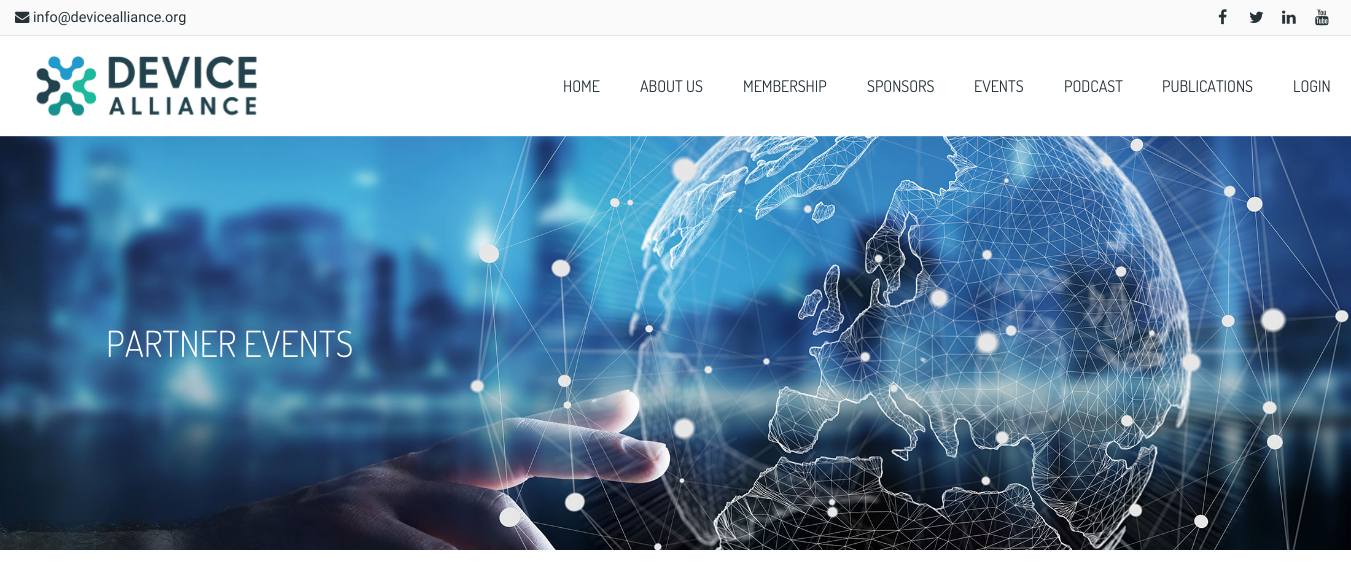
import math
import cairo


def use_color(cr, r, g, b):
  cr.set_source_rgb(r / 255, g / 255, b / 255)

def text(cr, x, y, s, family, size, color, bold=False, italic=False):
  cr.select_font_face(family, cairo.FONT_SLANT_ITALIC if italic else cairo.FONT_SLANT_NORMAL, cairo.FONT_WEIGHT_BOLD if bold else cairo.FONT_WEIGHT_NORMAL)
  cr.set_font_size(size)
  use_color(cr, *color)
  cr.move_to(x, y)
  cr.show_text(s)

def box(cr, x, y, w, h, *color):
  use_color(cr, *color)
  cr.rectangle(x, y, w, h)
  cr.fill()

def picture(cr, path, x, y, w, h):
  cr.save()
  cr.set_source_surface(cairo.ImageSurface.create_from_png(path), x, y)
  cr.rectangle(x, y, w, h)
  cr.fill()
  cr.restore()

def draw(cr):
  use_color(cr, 255, 255, 255)
  cr.paint()
  box(cr, 0, 0, 1351, 35, 250, 250, 250)
  picture(cr, "img_01.png", 15, 11, 15, 12)
  picture(cr, "img_02.png", 1218, 9, 9, 16)
  picture(cr, "img_03.png", 1249, 11, 15, 12)
  picture(cr, "img_04.png", 1282, 10, 14, 14)
  picture(cr, "img_05.png", 1315, 9, 14, 17)
  box(cr, 0, 35, 1351, 1, 230, 230, 230)
  picture(cr, "img_07.png", 0, 136, 1351, 414)
  cr.set_source_rgba(1, 1, 1, 0.17)
  cr.rectangle(0, 136, 1351, 1)
  cr.fill()
  picture(cr, "img_06.png", 36, 56, 221, 60)
  text(cr, 33, 22, "info@devicealliance.org", "Roboto", 14.4, (38, 50, 56))
  text(cr, 563, 92, "HOME", "Dosis", 16, (38, 50, 56))
  text(cr, 640, 92, "ABOUT US", "Dosis", 16, (38, 50, 56))
  text(cr, 743, 92, "MEMBERSHIP", "Dosis", 16, (38, 50, 56))
  text(cr, 867, 92, "SPONSORS", "Dosis", 16, (38, 50, 56))
  text(cr, 974, 92, "EVENTS", "Dosis", 16, (38, 50, 56))
  text(cr, 1064, 92, "PODCAST", "Dosis", 16, (38, 50, 56))
  text(cr, 1162, 92, "PUBLICATIONS", "Dosis", 16, (38, 50, 56))
  text(cr, 1293, 92, "LOGIN", "Dosis", 16, (38, 50, 56))
  text(cr, 106, 357, "PARTNER EVENTS", "Dosis Light", 36, (255, 255, 255))


surface = cairo.ImageSurface(cairo.FORMAT_RGB24, 1351, 584)
cr = cairo.Context(surface)
options = cairo.FontOptions()
options.set_hint_metrics(cairo.HINT_METRICS_OFF)
options.set_hint_style(cairo.HINT_STYLE_NONE)
cr.set_font_options(options)
cr.set_miter_limit(4)
draw(cr)
surface.write_to_png("out.png")
